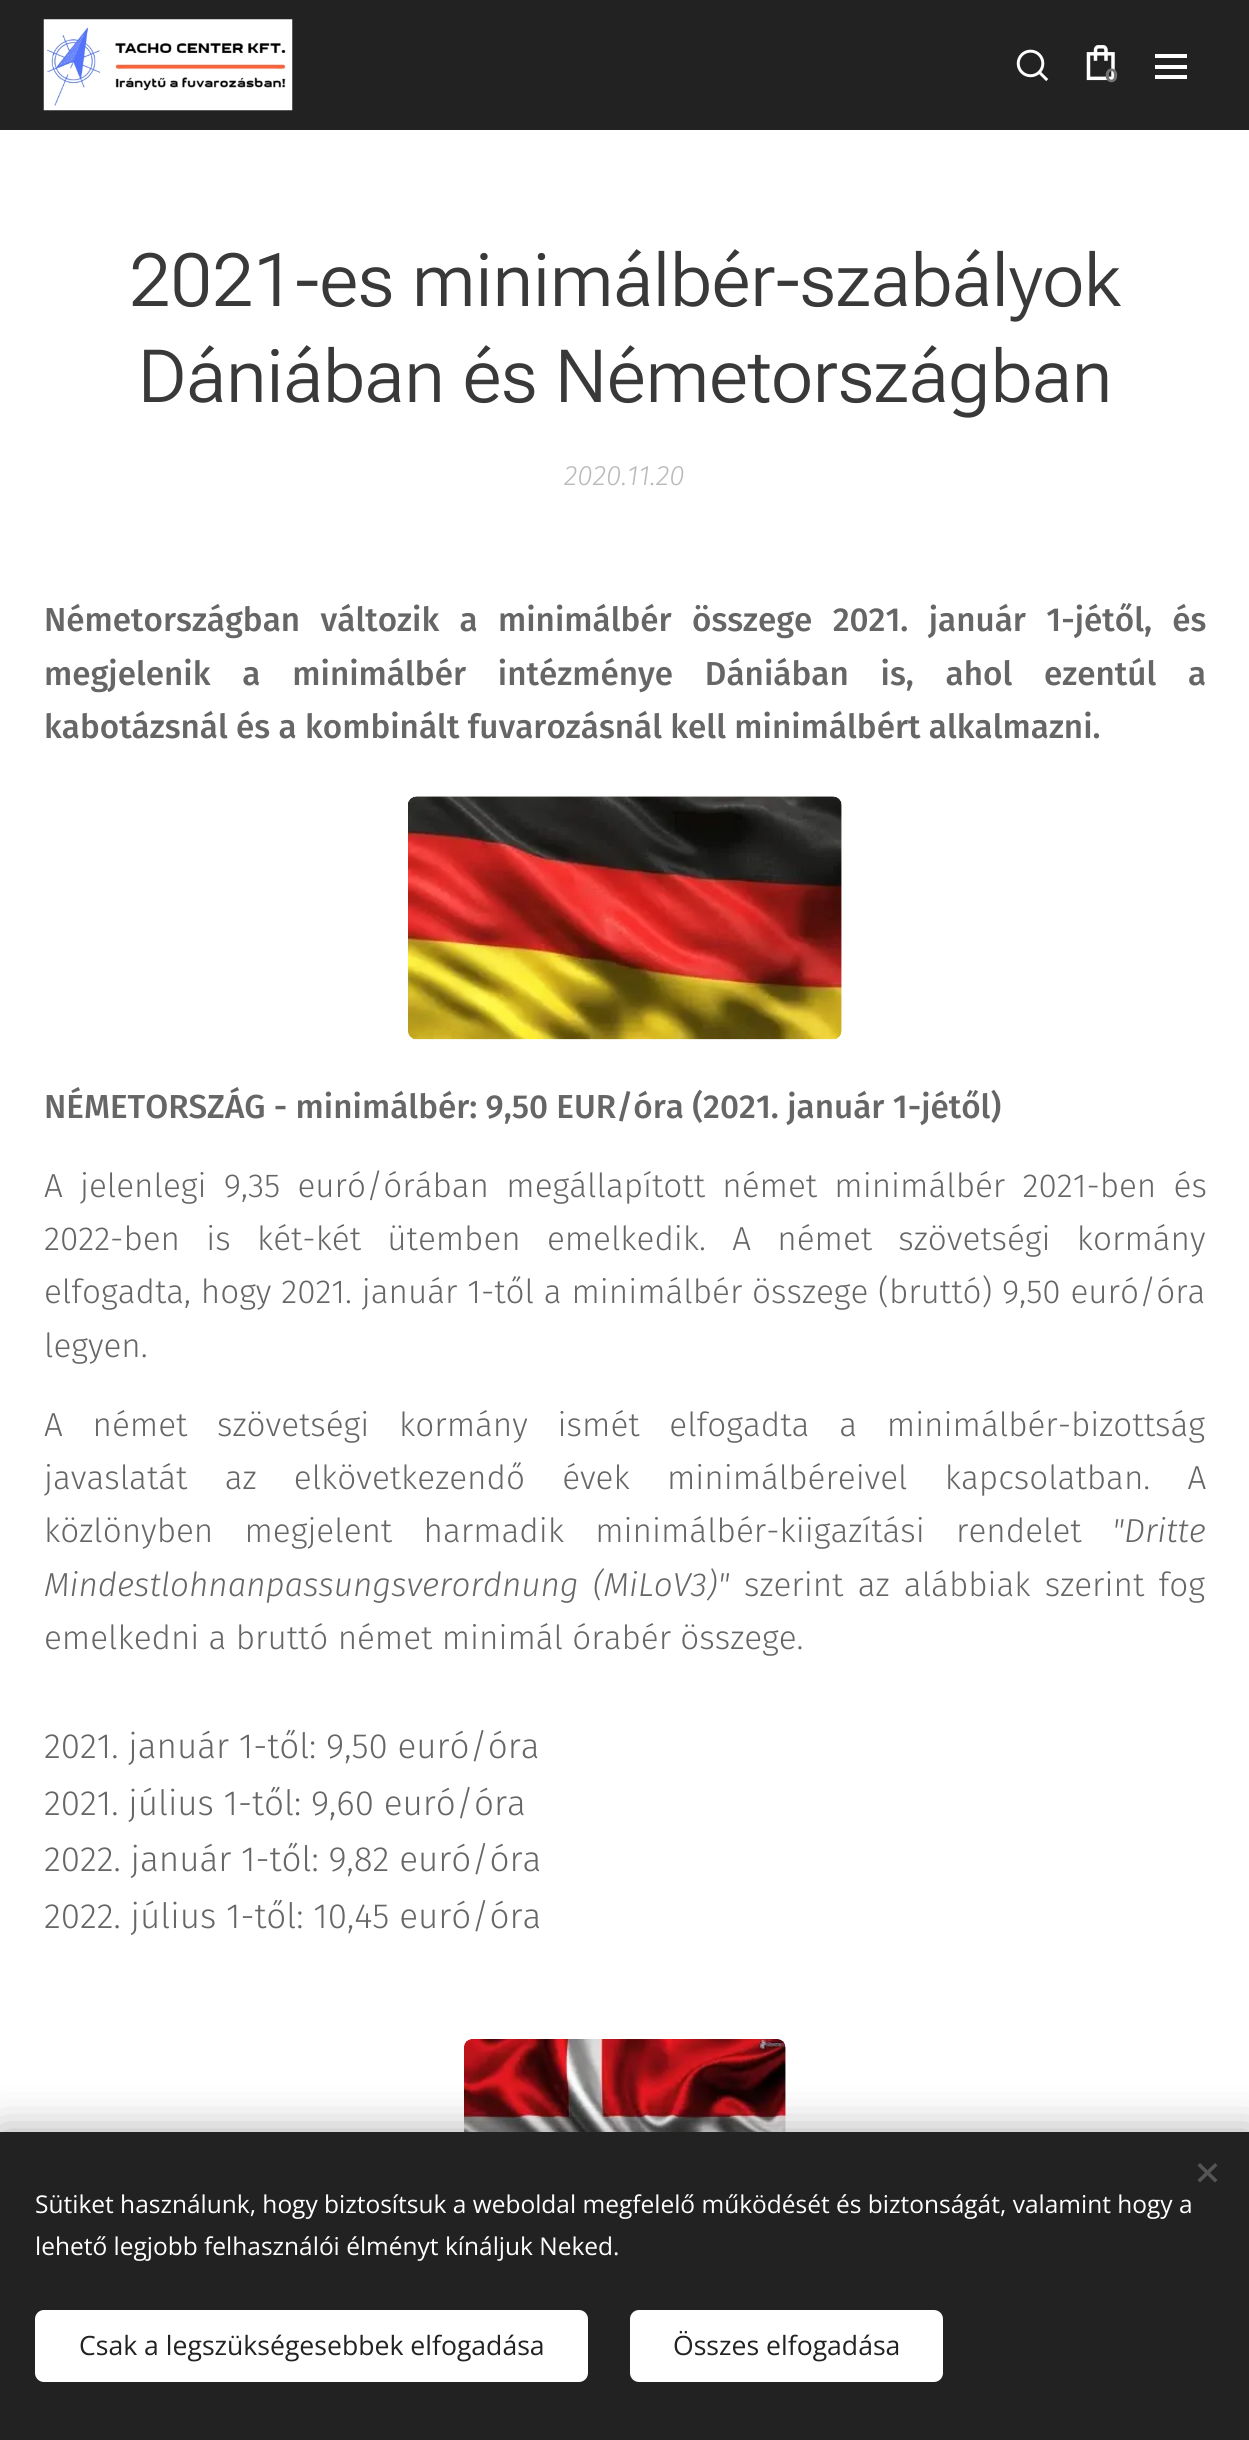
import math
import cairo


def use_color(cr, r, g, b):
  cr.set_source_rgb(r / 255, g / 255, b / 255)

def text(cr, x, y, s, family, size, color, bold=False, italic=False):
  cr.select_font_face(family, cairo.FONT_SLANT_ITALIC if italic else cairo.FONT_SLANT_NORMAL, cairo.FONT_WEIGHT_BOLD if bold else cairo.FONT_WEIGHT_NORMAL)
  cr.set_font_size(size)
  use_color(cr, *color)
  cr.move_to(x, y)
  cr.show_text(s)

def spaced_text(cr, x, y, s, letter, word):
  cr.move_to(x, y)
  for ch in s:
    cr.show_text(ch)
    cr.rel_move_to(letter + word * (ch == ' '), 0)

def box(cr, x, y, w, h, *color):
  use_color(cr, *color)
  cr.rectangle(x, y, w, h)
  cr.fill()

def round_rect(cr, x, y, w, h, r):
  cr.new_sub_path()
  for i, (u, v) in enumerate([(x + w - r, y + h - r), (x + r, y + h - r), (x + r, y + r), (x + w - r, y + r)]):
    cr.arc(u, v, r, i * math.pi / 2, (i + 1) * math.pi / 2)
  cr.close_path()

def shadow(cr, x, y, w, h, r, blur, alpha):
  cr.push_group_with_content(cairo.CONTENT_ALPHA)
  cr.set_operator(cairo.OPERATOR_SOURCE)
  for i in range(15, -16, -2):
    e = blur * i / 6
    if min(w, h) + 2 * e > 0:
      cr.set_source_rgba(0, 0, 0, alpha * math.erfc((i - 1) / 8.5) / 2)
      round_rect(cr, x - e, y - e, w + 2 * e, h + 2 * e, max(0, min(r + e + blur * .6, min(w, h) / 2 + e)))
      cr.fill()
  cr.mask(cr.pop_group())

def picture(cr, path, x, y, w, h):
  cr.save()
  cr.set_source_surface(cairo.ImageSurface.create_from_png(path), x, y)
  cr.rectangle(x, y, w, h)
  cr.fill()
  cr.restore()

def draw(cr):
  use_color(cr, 255, 255, 255)
  cr.paint()
  box(cr, 0, 0, 1249, 130, 34, 34, 34)
  picture(cr, "img_01.png", 43, 19, 250, 92)
  picture(cr, "img_02.png", 1016, 49, 33, 33)
  picture(cr, "img_03.png", 1086, 45, 29, 36)
  box(cr, 1155, 65, 32, 4, 255, 255, 255)
  box(cr, 1155, 54, 32, 4, 255, 255, 255)
  box(cr, 1155, 75, 32, 4, 255, 255, 255)
  picture(cr, "img_04.png", 408, 796, 434, 244)
  picture(cr, "img_05.png", 464, 2039, 322, 93)
  use_color(cr, 0, 0, 0)
  shadow(cr, 0, 2132, 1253, 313, 0, 22, 0.33)
  box(cr, 0, 2132, 1249, 308, 34, 34, 34)
  use_color(cr, 85, 85, 85)
  cr.new_path()
  cr.move_to(1197.5, 2180)
  cr.line_to(1215, 2163)
  cr.line_to(1217.5, 2165.5)
  cr.line_to(1200, 2182.5)
  cr.close_path()
  cr.fill()
  cr.new_path()
  cr.move_to(1200, 2163)
  cr.line_to(1217.5, 2180)
  cr.line_to(1215, 2182.5)
  cr.line_to(1197.5, 2165.5)
  cr.close_path()
  cr.fill()
  use_color(cr, 255, 255, 255)
  round_rect(cr, 35, 2310, 553, 72, 9)
  cr.fill()
  round_rect(cr, 630, 2310, 313, 72, 9)
  cr.fill()
  text(cr, 1105, 82, "0", "Montserrat", 19, (115, 115, 115), bold=True)
  text(cr, 129, 306, "2021-es minimálbér-szabályok", "Roboto Flex Light", 73.5, (57, 57, 57))
  text(cr, 138, 402, "Dániában és Németországban", "Roboto Flex Light", 73.5, (57, 57, 57))
  text(cr, 564, 485, "2020.11.20", "Fira Sans Light", 28, (186, 186, 186), italic=True)
  cr.select_font_face("Fira Sans Medium")
  cr.set_font_size(33.25)
  use_color(cr, 102, 102, 102)
  spaced_text(cr, 44, 631, "Németországban változik a minimálbér összege 2021. január 1-jétől, és", 0, 12)
  spaced_text(cr, 44, 685, "megjelenik a minimálbér intézménye Dániában is, ahol ezentúl a", 0, 23.5)
  text(cr, 44, 738, "kabotázsnál és a kombinált fuvarozásnál kell minimálbért alkalmazni.", "Fira Sans Medium", 33.25, (102, 102, 102))
  text(cr, 44, 1118, "NÉMETORSZÁG - minimálbér: 9,50 EUR/óra (2021. január 1-jétől)", "Fira Sans Medium", 33.25, (102, 102, 102))
  cr.select_font_face("Fira Sans Light")
  spaced_text(cr, 44, 1197, "A jelenlegi 9,35 euró/órában megállapított német minimálbér 2021-ben és", 0, 8)
  spaced_text(cr, 44, 1250, "2022-ben is két-két ütemben emelkedik. A német szövetségi kormány", 0, 17)
  spaced_text(cr, 44, 1303, "elfogadta, hogy 2021. január 1-től a minimálbér összege (bruttó) 9,50 euró/óra", 0, 0.5)
  text(cr, 44, 1357, "legyen.", "Fira Sans Light", 33.25, (102, 102, 102))
  spaced_text(cr, 44, 1436, "A német szövetségi kormány ismét elfogadta a minimálbér-bizottság", 0, 20.5)
  spaced_text(cr, 44, 1489, "javaslatát az elkövetkezendő évek minimálbéreivel kapcsolatban. A", 0, 28)
  spaced_text(cr, 44, 1542, "közlönyben megjelent harmadik minimálbér-kiigazítási rendelet", 0, 22)
  text(cr, 1112, 1542, "\"Dritte", "Fira Sans Light", 33.25, (102, 102, 102), italic=True)
  spaced_text(cr, 44, 1596, "Mindestlohnanpassungsverordnung (MiLoV3)\"", 0, 5)
  cr.select_font_face("Fira Sans Light")
  spaced_text(cr, 744, 1596, "szerint az alábbiak szerint fog", 0, 5)
  text(cr, 44, 1649, "emelkedni a bruttó német minimál órabér összege.", "Fira Sans Light", 33.25, (102, 102, 102))
  text(cr, 44, 1758, "2021. január 1-től: 9,50 euró/óra", "Fira Sans Light", 35, (102, 102, 102))
  text(cr, 44, 1815, "2021. július 1-től: 9,60 euró/óra", "Fira Sans Light", 35, (102, 102, 102))
  text(cr, 44, 1871, "2022. január 1-től: 9,82 euró/óra", "Fira Sans Light", 35, (102, 102, 102))
  text(cr, 44, 1928, "2022. július 1-től: 10,45 euró/óra", "Fira Sans Light", 35, (102, 102, 102))
  text(cr, 35, 2213, "Sütiket használunk, hogy biztosítsuk a weboldal megfelelő működését és biztonságát, valamint hogy a", "Open Sans", 24.5, (255, 255, 255))
  text(cr, 35, 2255, "lehető legjobb felhasználói élményt kínáljuk Neked.", "Open Sans", 24.5, (255, 255, 255))
  text(cr, 79, 2355, "Csak a legszükségesebbek elfogadása", "Open Sans", 26.6, (34, 34, 34))
  text(cr, 673, 2355, "Összes elfogadása", "Open Sans", 26.6, (34, 34, 34))


surface = cairo.ImageSurface(cairo.FORMAT_RGB24, 1249, 2440)
cr = cairo.Context(surface)
options = cairo.FontOptions()
options.set_hint_metrics(cairo.HINT_METRICS_OFF)
options.set_hint_style(cairo.HINT_STYLE_NONE)
cr.set_font_options(options)
cr.set_miter_limit(4)
draw(cr)
surface.write_to_png("out.png")
